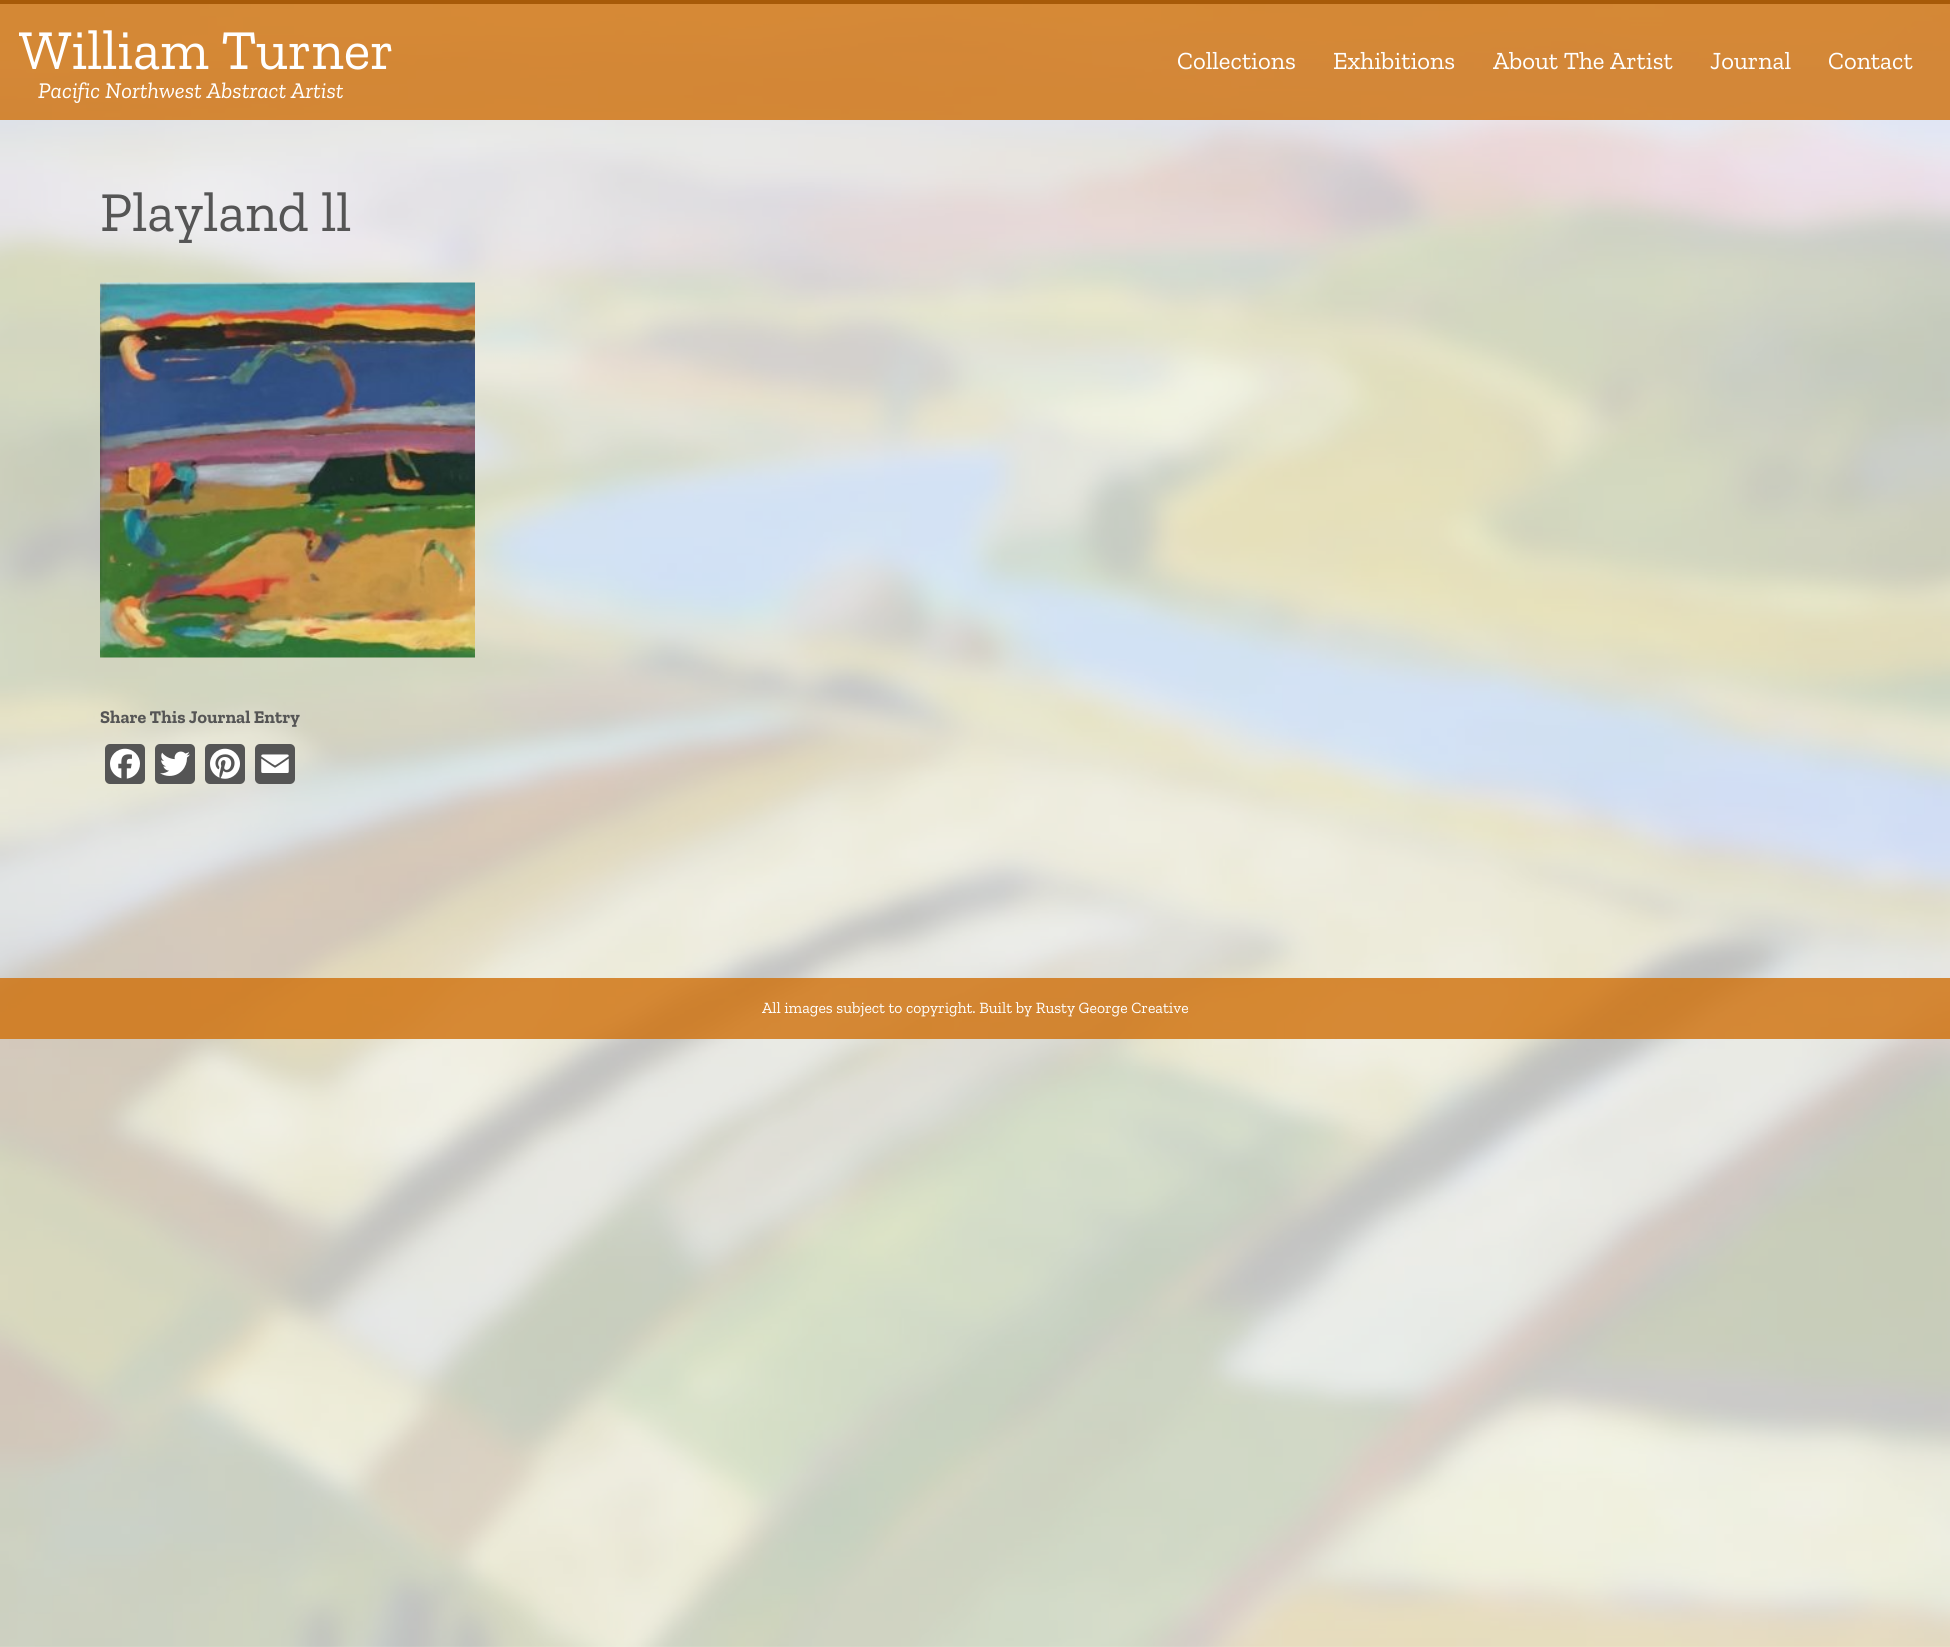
import math
import cairo


def use_color(cr, r, g, b):
  cr.set_source_rgb(r / 255, g / 255, b / 255)

def text(cr, x, y, s, family, size, color, bold=False, italic=False):
  cr.select_font_face(family, cairo.FONT_SLANT_ITALIC if italic else cairo.FONT_SLANT_NORMAL, cairo.FONT_WEIGHT_BOLD if bold else cairo.FONT_WEIGHT_NORMAL)
  cr.set_font_size(size)
  use_color(cr, *color)
  cr.move_to(x, y)
  cr.show_text(s)

def box(cr, x, y, w, h, *color):
  use_color(cr, *color)
  cr.rectangle(x, y, w, h)
  cr.fill()

def round_rect(cr, x, y, w, h, r):
  cr.new_sub_path()
  for i, (u, v) in enumerate([(x + w - r, y + h - r), (x + r, y + h - r), (x + r, y + r), (x + w - r, y + r)]):
    cr.arc(u, v, r, i * math.pi / 2, (i + 1) * math.pi / 2)
  cr.close_path()

def picture(cr, path, x, y, w, h):
  cr.save()
  cr.set_source_surface(cairo.ImageSurface.create_from_png(path), x, y)
  cr.rectangle(x, y, w, h)
  cr.fill()
  cr.restore()

def draw(cr):
  use_color(cr, 255, 255, 255)
  cr.paint()
  picture(cr, "img_01.png", 0, 4, 1950, 1643)
  cr.set_source_rgba(0.812, 0.435, 0.035, 0.8)
  cr.rectangle(0, 4, 1950, 116)
  cr.fill()
  box(cr, 0, 0, 1950, 4, 167, 90, 8)
  picture(cr, "img_02.png", 100, 282, 375, 376)
  use_color(cr, 85, 85, 85)
  round_rect(cr, 105, 744, 40, 40, 5)
  cr.fill()
  picture(cr, "img_03.png", 110, 748, 30, 31)
  round_rect(cr, 155, 744, 40, 40, 5)
  cr.fill()
  picture(cr, "img_04.png", 160, 751, 30, 25)
  round_rect(cr, 205, 744, 40, 40, 5)
  cr.fill()
  picture(cr, "img_05.png", 210, 748, 30, 31)
  round_rect(cr, 255, 744, 40, 40, 5)
  cr.fill()
  picture(cr, "img_06.png", 261, 754, 28, 19)
  cr.set_source_rgba(0.812, 0.435, 0.035, 0.8)
  cr.rectangle(0, 978, 1950, 61)
  cr.fill()
  text(cr, 19, 69, "William Turner", "Zilla Slab", 56.25, (255, 255, 255))
  text(cr, 38, 98, "Pacific Northwest Abstract Artist", "Zilla Slab", 22.5, (255, 255, 255), italic=True)
  text(cr, 1177, 69, "Collections", "Zilla Slab", 24.75, (255, 255, 255))
  text(cr, 1333, 69, "Exhibitions", "Zilla Slab", 24.75, (255, 255, 255))
  text(cr, 1493, 69, "About The Artist", "Zilla Slab", 24.75, (255, 255, 255))
  text(cr, 1710, 69, "Journal", "Zilla Slab", 24.75, (255, 255, 255))
  text(cr, 1828, 69, "Contact", "Zilla Slab", 24.75, (255, 255, 255))
  text(cr, 100, 231, "Playland ll", "Zilla Slab", 56.25, (85, 85, 85))
  text(cr, 100, 723, "Share This Journal Entry", "Zilla Slab", 18, (85, 85, 85), bold=True)
  text(cr, 762, 1013, "All images subject to copyright. Built by Rusty George Creative", "Zilla Slab", 15.75, (255, 255, 255))


surface = cairo.ImageSurface(cairo.FORMAT_RGB24, 1950, 1647)
cr = cairo.Context(surface)
options = cairo.FontOptions()
options.set_hint_metrics(cairo.HINT_METRICS_OFF)
options.set_hint_style(cairo.HINT_STYLE_NONE)
cr.set_font_options(options)
cr.set_miter_limit(4)
draw(cr)
surface.write_to_png("out.png")
